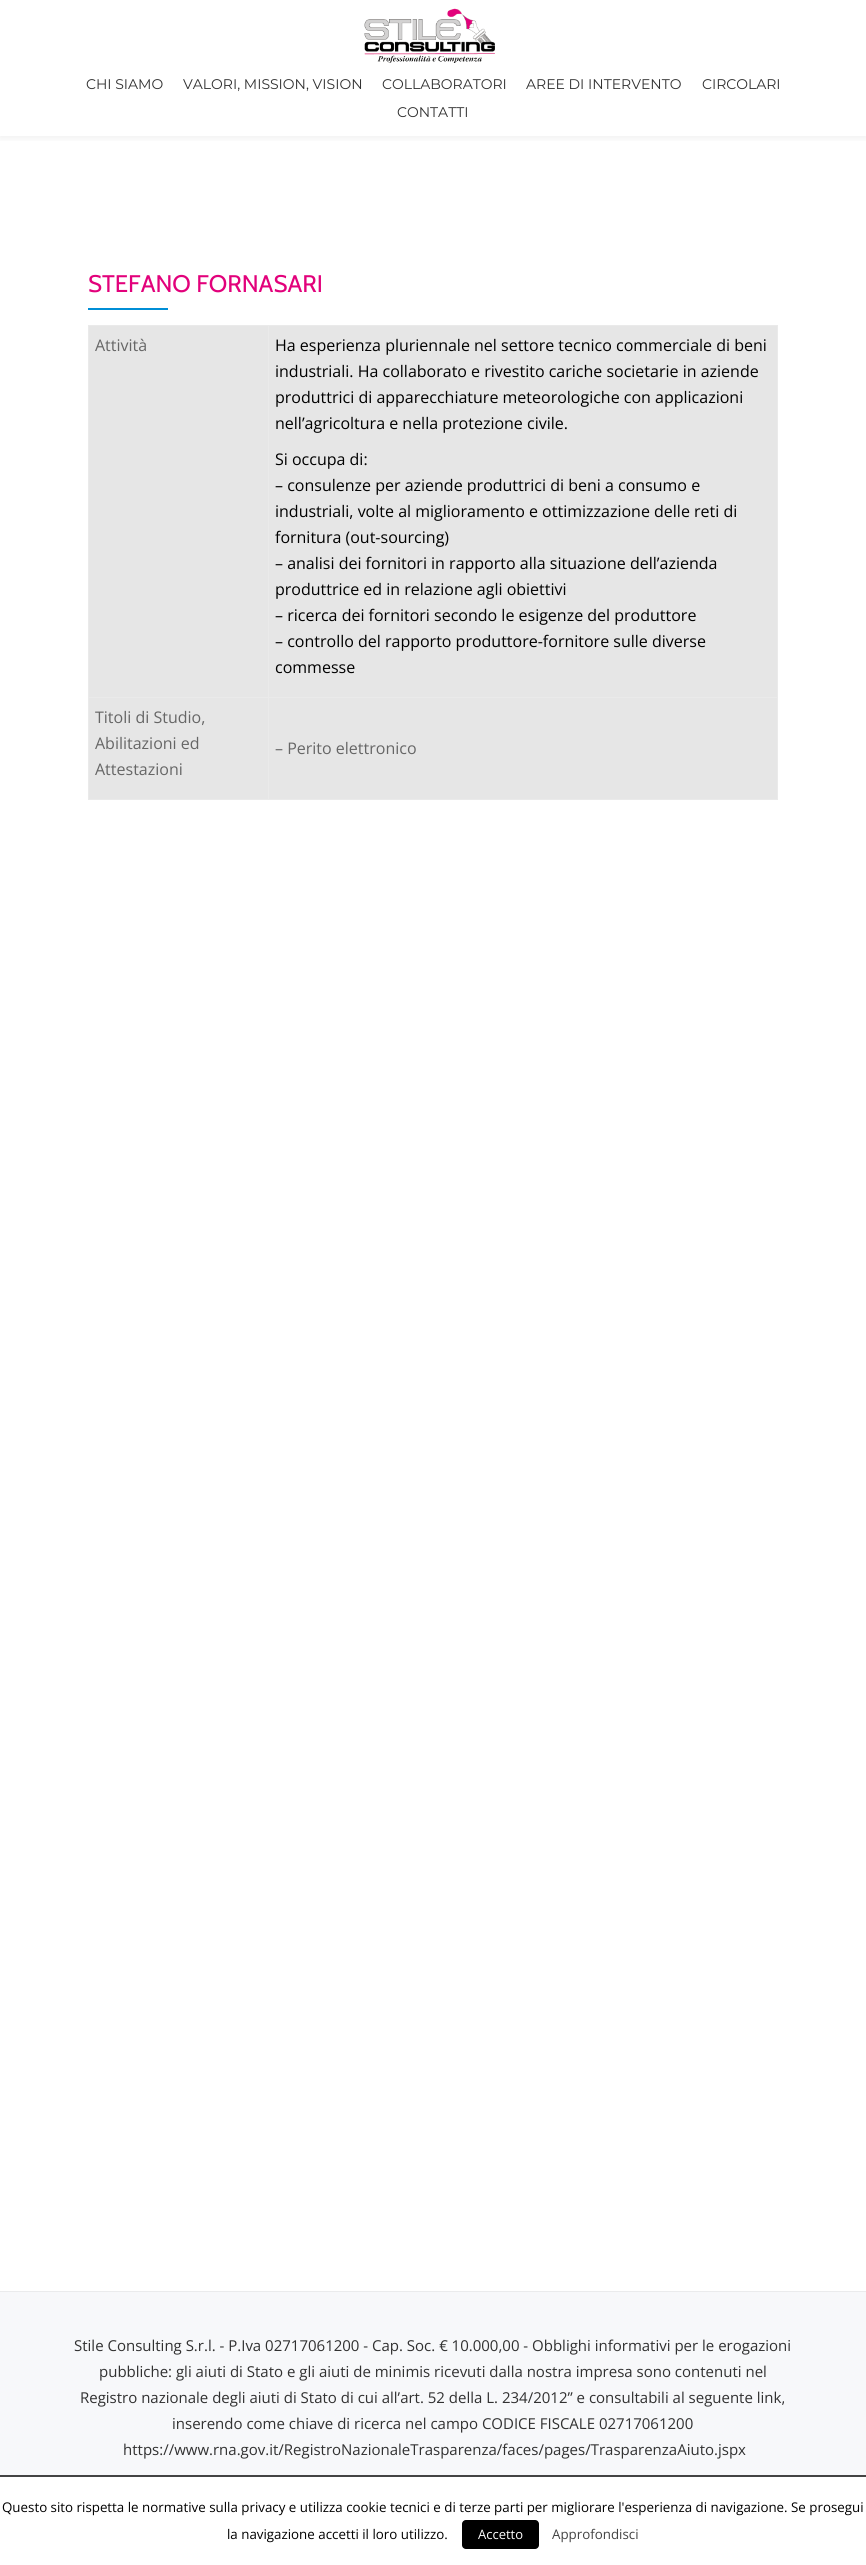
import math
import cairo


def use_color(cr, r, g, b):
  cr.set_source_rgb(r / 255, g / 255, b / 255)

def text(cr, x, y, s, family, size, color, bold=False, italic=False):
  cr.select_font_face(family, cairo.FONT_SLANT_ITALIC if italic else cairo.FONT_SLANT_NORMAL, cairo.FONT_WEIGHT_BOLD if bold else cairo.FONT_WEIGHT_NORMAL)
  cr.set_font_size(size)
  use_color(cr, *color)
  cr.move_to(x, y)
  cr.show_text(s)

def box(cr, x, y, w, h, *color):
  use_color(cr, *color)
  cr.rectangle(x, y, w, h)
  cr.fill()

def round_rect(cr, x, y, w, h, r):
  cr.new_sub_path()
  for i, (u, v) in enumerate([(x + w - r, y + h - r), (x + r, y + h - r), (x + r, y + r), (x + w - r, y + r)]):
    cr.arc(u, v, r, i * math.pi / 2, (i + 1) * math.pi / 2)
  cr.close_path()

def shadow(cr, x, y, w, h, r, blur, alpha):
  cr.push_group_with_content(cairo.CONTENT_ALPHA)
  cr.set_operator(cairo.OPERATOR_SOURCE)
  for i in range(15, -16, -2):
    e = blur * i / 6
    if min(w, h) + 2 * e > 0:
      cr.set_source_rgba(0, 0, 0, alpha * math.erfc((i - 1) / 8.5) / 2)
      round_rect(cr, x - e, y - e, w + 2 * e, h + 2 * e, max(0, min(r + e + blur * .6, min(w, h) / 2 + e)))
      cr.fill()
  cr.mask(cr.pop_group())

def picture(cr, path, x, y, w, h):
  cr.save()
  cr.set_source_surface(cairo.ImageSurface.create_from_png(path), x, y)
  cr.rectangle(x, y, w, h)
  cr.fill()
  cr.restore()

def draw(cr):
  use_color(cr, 255, 255, 255)
  cr.paint()
  cr.save()
  cr.rectangle(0, 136, 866, 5)
  cr.clip()
  use_color(cr, 50, 50, 50)
  shadow(cr, 0, 2, 866, 136, 0, 4, 0.08)
  cr.restore()
  picture(cr, "img_01.png", 364, 8, 131, 55)
  box(cr, 88, 308, 80, 2, 0, 142, 214)
  box(cr, 88, 325, 690, 1, 234, 234, 234)
  box(cr, 777, 325, 1, 475, 234, 234, 234)
  box(cr, 88, 799, 690, 1, 234, 234, 234)
  box(cr, 88, 325, 1, 475, 234, 234, 234)
  box(cr, 89, 326, 179, 371, 230, 230, 230)
  box(cr, 269, 326, 508, 371, 230, 230, 230)
  box(cr, 268, 697, 510, 1, 234, 234, 234)
  box(cr, 268, 697, 1, 103, 234, 234, 234)
  box(cr, 88, 697, 181, 1, 234, 234, 234)
  box(cr, 268, 325, 1, 373, 234, 234, 234)
  box(cr, 89, 698, 179, 101, 230, 230, 230)
  box(cr, 269, 698, 508, 101, 230, 230, 230)
  box(cr, 0, 2292, 866, 183, 247, 248, 250)
  box(cr, 0, 2291, 866, 1, 234, 235, 236)
  box(cr, 0, 2475, 866, 2, 68, 68, 68)
  use_color(cr, 0, 0, 0)
  round_rect(cr, 462, 2520, 77, 29, 4)
  cr.fill()
  text(cr, 86, 89, "CHI SIAMO", "Montserrat", 14, (49, 49, 49))
  text(cr, 183, 89, "VALORI, MISSION, VISION", "Montserrat", 14, (49, 49, 49))
  text(cr, 382, 89, "COLLABORATORI", "Montserrat", 14, (49, 49, 49))
  text(cr, 526, 89, "AREE DI INTERVENTO", "Montserrat", 14, (49, 49, 49))
  text(cr, 702, 89, "CIRCOLARI", "Montserrat", 14, (49, 49, 49))
  text(cr, 397, 117, "CONTATTI", "Montserrat", 14, (49, 49, 49))
  text(cr, 88, 292, "STEFANO FORNASARI", "Cabin", 24, (226, 1, 123))
  text(cr, 95, 351, "Attività", "Open Sans", 16, (102, 102, 102))
  text(cr, 275, 351, "Ha esperienza pluriennale nel settore tecnico commerciale di beni", "Open Sans", 16, (0, 0, 0))
  text(cr, 275, 377, "industriali. Ha collaborato e rivestito cariche societarie in aziende", "Open Sans", 16, (0, 0, 0))
  text(cr, 275, 403, "produttrici di apparecchiature meteorologiche con applicazioni", "Open Sans", 16, (0, 0, 0))
  text(cr, 275, 429, "nell’agricoltura e nella protezione civile.", "Open Sans", 16, (0, 0, 0))
  text(cr, 275, 465, "Si occupa di:", "Open Sans", 16, (0, 0, 0))
  text(cr, 275, 491, "– consulenze per aziende produttrici di beni a consumo e", "Open Sans", 16, (0, 0, 0))
  text(cr, 275, 517, "industriali, volte al miglioramento e ottimizzazione delle reti di", "Open Sans", 16, (0, 0, 0))
  text(cr, 275, 543, "fornitura (out-sourcing)", "Open Sans", 16, (0, 0, 0))
  text(cr, 275, 569, "– analisi dei fornitori in rapporto alla situazione dell’azienda", "Open Sans", 16, (0, 0, 0))
  text(cr, 275, 595, "produttrice ed in relazione agli obiettivi", "Open Sans", 16, (0, 0, 0))
  text(cr, 275, 621, "– ricerca dei fornitori secondo le esigenze del produttore", "Open Sans", 16, (0, 0, 0))
  text(cr, 275, 647, "– controllo del rapporto produttore-fornitore sulle diverse", "Open Sans", 16, (0, 0, 0))
  text(cr, 275, 673, "commesse", "Open Sans", 16, (0, 0, 0))
  text(cr, 95, 723, "Titoli di Studio,", "Open Sans", 16, (102, 102, 102))
  text(cr, 95, 749, "Abilitazioni ed", "Open Sans", 16, (102, 102, 102))
  text(cr, 95, 775, "Attestazioni", "Open Sans", 16, (102, 102, 102))
  text(cr, 275, 754, "– Perito elettronico", "Open Sans", 16, (102, 102, 102))
  text(cr, 74, 2351, "Stile Consulting S.r.l. - P.Iva 02717061200 - Cap. Soc. € 10.000,00 - Obblighi informativi per le erogazioni", "Open Sans", 15, (49, 49, 49))
  text(cr, 99, 2377, "pubbliche: gli aiuti di Stato e gli aiuti de minimis ricevuti dalla nostra impresa sono contenuti nel", "Open Sans", 15, (49, 49, 49))
  text(cr, 80, 2403, "Registro nazionale degli aiuti di Stato di cui all’art. 52 della L. 234/2012” e consultabili al seguente link,", "Open Sans", 15, (49, 49, 49))
  text(cr, 172, 2429, "inserendo come chiave di ricerca nel campo CODICE FISCALE 02717061200", "Open Sans", 15, (49, 49, 49))
  text(cr, 123, 2455, "https://www.rna.gov.it/RegistroNazionaleTrasparenza/faces/pages/TrasparenzaAiuto.jspx", "Open Sans", 15, (49, 49, 49))
  text(cr, 2, 2512, "Questo sito rispetta le normative sulla privacy e utilizza cookie tecnici e di terze parti per migliorare l'esperienza di navigazione. Se prosegui", "Open Sans", 13.33, (0, 0, 0))
  text(cr, 227, 2539, "la navigazione accetti il loro utilizzo.", "Open Sans", 13.33, (0, 0, 0))
  text(cr, 478, 2539, "Accetto", "Open Sans", 13, (255, 255, 255))
  text(cr, 552, 2539, "Approfondisci", "Open Sans", 13.33, (68, 68, 68))


surface = cairo.ImageSurface(cairo.FORMAT_RGB24, 866, 2565)
cr = cairo.Context(surface)
options = cairo.FontOptions()
options.set_hint_metrics(cairo.HINT_METRICS_OFF)
options.set_hint_style(cairo.HINT_STYLE_NONE)
cr.set_font_options(options)
cr.set_miter_limit(4)
draw(cr)
surface.write_to_png("out.png")
